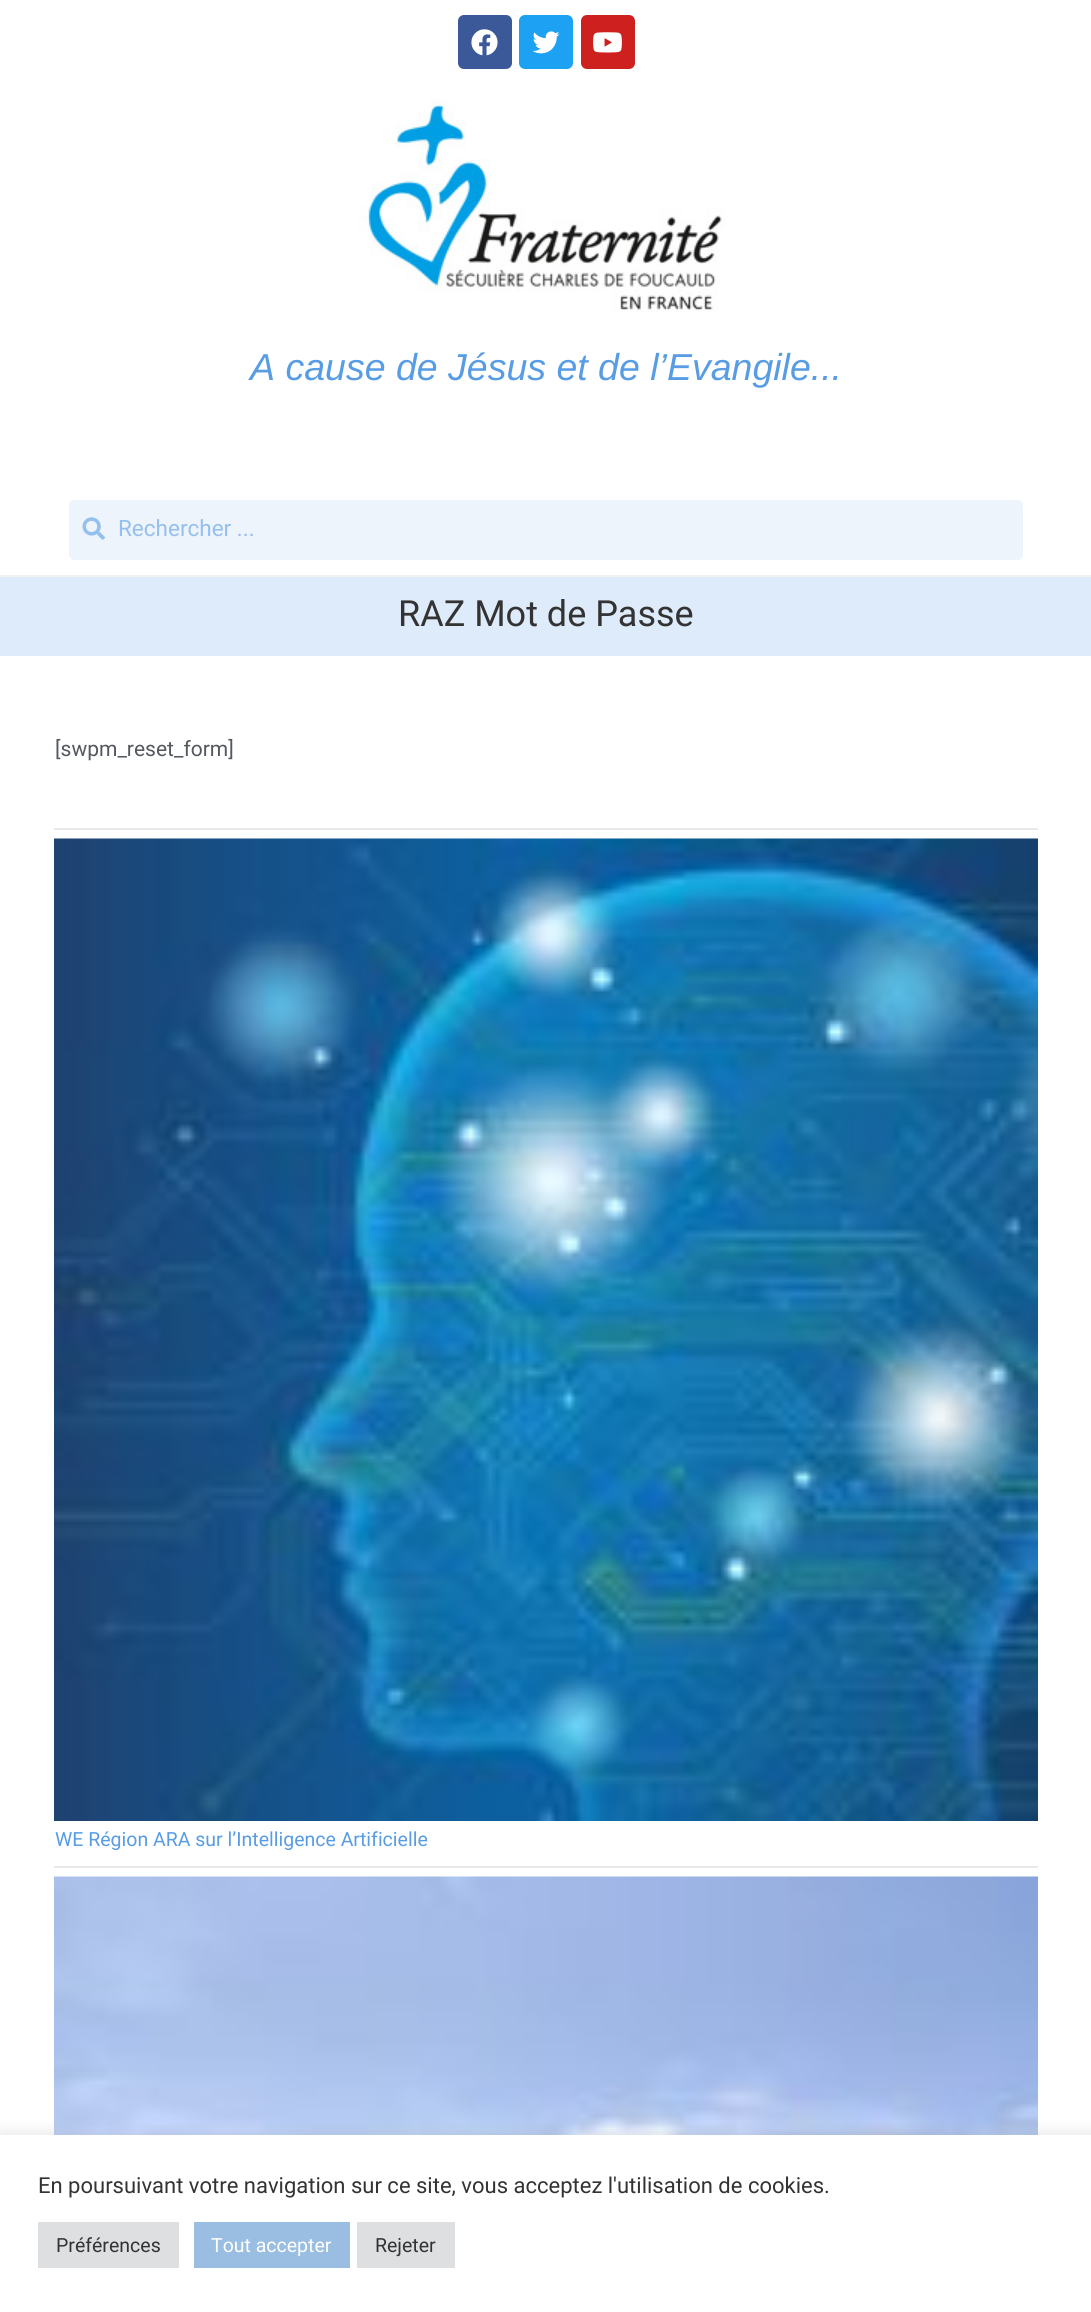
import math
import cairo


def use_color(cr, r, g, b):
  cr.set_source_rgb(r / 255, g / 255, b / 255)

def text(cr, x, y, s, family, size, color, bold=False, italic=False):
  cr.select_font_face(family, cairo.FONT_SLANT_ITALIC if italic else cairo.FONT_SLANT_NORMAL, cairo.FONT_WEIGHT_BOLD if bold else cairo.FONT_WEIGHT_NORMAL)
  cr.set_font_size(size)
  use_color(cr, *color)
  cr.move_to(x, y)
  cr.show_text(s)

def box(cr, x, y, w, h, *color):
  use_color(cr, *color)
  cr.rectangle(x, y, w, h)
  cr.fill()

def round_rect(cr, x, y, w, h, r):
  cr.new_sub_path()
  for i, (u, v) in enumerate([(x + w - r, y + h - r), (x + r, y + h - r), (x + r, y + r), (x + w - r, y + r)]):
    cr.arc(u, v, r, i * math.pi / 2, (i + 1) * math.pi / 2)
  cr.close_path()

def shadow(cr, x, y, w, h, r, blur, alpha):
  cr.push_group_with_content(cairo.CONTENT_ALPHA)
  cr.set_operator(cairo.OPERATOR_SOURCE)
  for i in range(15, -16, -2):
    e = blur * i / 6
    if min(w, h) + 2 * e > 0:
      cr.set_source_rgba(0, 0, 0, alpha * math.erfc((i - 1) / 8.5) / 2)
      round_rect(cr, x - e, y - e, w + 2 * e, h + 2 * e, max(0, min(r + e + blur * .6, min(w, h) / 2 + e)))
      cr.fill()
  cr.mask(cr.pop_group())

def picture(cr, path, x, y, w, h):
  cr.save()
  cr.set_source_surface(cairo.ImageSurface.create_from_png(path), x, y)
  cr.rectangle(x, y, w, h)
  cr.fill()
  cr.restore()

def draw(cr):
  use_color(cr, 255, 255, 255)
  cr.paint()
  box(cr, 0, 575, 1091, 2, 241, 241, 241)
  use_color(cr, 59, 89, 152)
  round_rect(cr, 458, 15, 54, 54, 6)
  cr.fill()
  picture(cr, "img_01.png", 471, 29, 27, 27)
  use_color(cr, 29, 161, 242)
  round_rect(cr, 519, 15, 54, 54, 6)
  cr.fill()
  picture(cr, "img_02.png", 532, 31, 28, 23)
  use_color(cr, 205, 32, 31)
  round_rect(cr, 581, 15, 54, 54, 6)
  cr.fill()
  picture(cr, "img_03.png", 593, 32, 29, 21)
  picture(cr, "img_04.png", 358, 99, 368, 214)
  use_color(cr, 237, 244, 252)
  round_rect(cr, 69, 500, 954, 60, 5)
  cr.fill()
  picture(cr, "img_05.png", 82, 517, 23, 23)
  box(cr, 0, 577, 1091, 79, 222, 235, 250)
  box(cr, 54, 828, 984, 2, 233, 233, 233)
  box(cr, 54, 1866, 984, 2, 233, 233, 233)
  picture(cr, "img_06.png", 54, 838, 984, 983)
  picture(cr, "img_07.png", 54, 1876, 984, 259)
  use_color(cr, 172, 171, 171)
  shadow(cr, 0, 2133, 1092, 179, 0, 7.5, 0.3)
  box(cr, 0, 2135, 1091, 177, 255, 255, 255)
  box(cr, 38, 2222, 141, 46, 222, 223, 224)
  box(cr, 194, 2222, 156, 46, 154, 189, 226)
  box(cr, 357, 2222, 98, 46, 222, 223, 224)
  text(cr, 250, 380, "A cause de Jésus et de l’Evangile...", "Liberation Sans", 37.5, (88, 156, 228), italic=True)
  text(cr, 118, 536, "Rechercher ...", "Roboto", 22.5, (148, 191, 238))
  text(cr, 398, 626, "RAZ Mot de Passe", "Roboto", 36, (51, 51, 51))
  text(cr, 55, 756, "[swpm_reset_form]", "Roboto", 21, (84, 89, 95))
  text(cr, 55, 1846, "WE Région ARA sur l’Intelligence Artificielle", "Roboto", 19.5, (88, 156, 228))
  text(cr, 38, 2193, "En poursuivant votre navigation sur ce site, vous acceptez l'utilisation de cookies.", "Roboto", 22, (51, 51, 51))
  text(cr, 56, 2252, "Préférences", "Roboto", 19.5, (51, 51, 51))
  text(cr, 211, 2252, "Tout accepter", "Roboto", 19.5, (255, 255, 255))
  text(cr, 375, 2252, "Rejeter", "Roboto", 19.5, (51, 51, 51))


surface = cairo.ImageSurface(cairo.FORMAT_RGB24, 1091, 2312)
cr = cairo.Context(surface)
options = cairo.FontOptions()
options.set_hint_metrics(cairo.HINT_METRICS_OFF)
options.set_hint_style(cairo.HINT_STYLE_NONE)
cr.set_font_options(options)
cr.set_miter_limit(4)
draw(cr)
surface.write_to_png("out.png")
